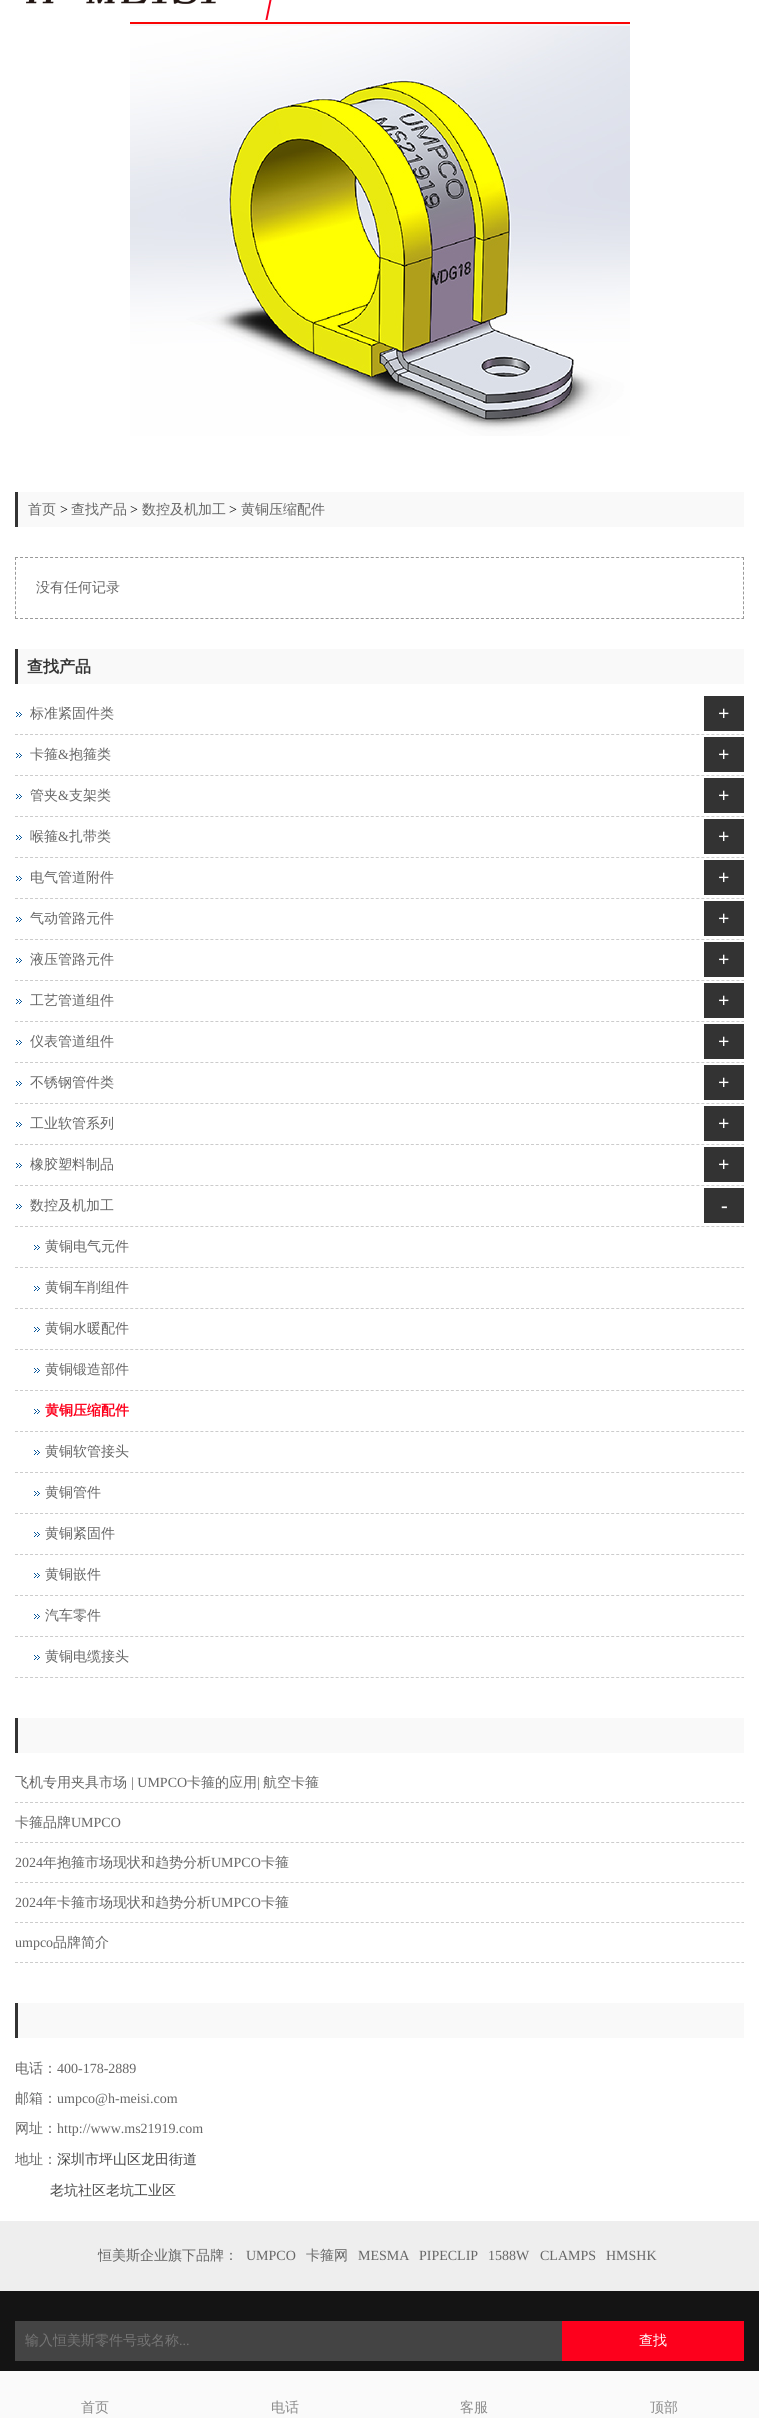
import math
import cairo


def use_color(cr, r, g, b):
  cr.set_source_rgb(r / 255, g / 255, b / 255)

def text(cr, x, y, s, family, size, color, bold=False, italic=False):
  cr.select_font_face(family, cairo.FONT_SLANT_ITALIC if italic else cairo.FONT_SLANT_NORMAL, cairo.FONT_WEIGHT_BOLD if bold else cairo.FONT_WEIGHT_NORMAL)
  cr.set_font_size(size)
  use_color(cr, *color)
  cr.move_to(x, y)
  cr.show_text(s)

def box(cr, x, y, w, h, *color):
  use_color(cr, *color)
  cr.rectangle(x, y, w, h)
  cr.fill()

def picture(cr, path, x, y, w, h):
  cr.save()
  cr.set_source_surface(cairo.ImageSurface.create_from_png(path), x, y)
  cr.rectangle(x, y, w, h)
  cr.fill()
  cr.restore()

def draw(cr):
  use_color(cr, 255, 255, 255)
  cr.paint()
  picture(cr, "img_01.png", 26, 0, 246, 20)
  picture(cr, "img_02.png", 130, 22, 500, 414)
  box(cr, 18, 492, 726, 35, 249, 249, 249)
  box(cr, 15, 492, 3, 35, 51, 51, 51)
  cr.new_path()
  cr.move_to(15, 557.5)
  cr.line_to(744, 557.5)
  use_color(cr, 153, 153, 153)
  cr.set_line_width(1)
  cr.set_dash([3, 2.01])
  cr.stroke()
  cr.new_path()
  cr.move_to(743.5, 557)
  cr.line_to(743.5, 619)
  cr.set_dash([3, 1.92])
  cr.stroke()
  cr.new_path()
  cr.move_to(15, 618.5)
  cr.line_to(744, 618.5)
  cr.set_dash([3, 2.01])
  cr.stroke()
  cr.new_path()
  cr.move_to(15.5, 557)
  cr.line_to(15.5, 619)
  cr.set_dash([3, 1.92])
  cr.stroke()
  box(cr, 18, 649, 726, 35, 249, 249, 249)
  box(cr, 15, 649, 3, 35, 51, 51, 51)
  picture(cr, "img_03.png", 16, 712, 6, 5)
  cr.new_path()
  cr.move_to(15, 734.5)
  cr.line_to(744, 734.5)
  use_color(cr, 204, 204, 204)
  cr.set_dash([3, 2.01])
  cr.stroke()
  box(cr, 704, 696, 40, 35, 51, 51, 51)
  picture(cr, "img_03.png", 16, 753, 6, 5)
  cr.new_path()
  cr.move_to(15, 775.5)
  cr.line_to(744, 775.5)
  use_color(cr, 204, 204, 204)
  cr.stroke()
  box(cr, 704, 737, 40, 35, 51, 51, 51)
  picture(cr, "img_03.png", 16, 794, 6, 5)
  cr.new_path()
  cr.move_to(15, 816.5)
  cr.line_to(744, 816.5)
  use_color(cr, 204, 204, 204)
  cr.stroke()
  box(cr, 704, 778, 40, 35, 51, 51, 51)
  picture(cr, "img_03.png", 16, 835, 6, 5)
  cr.new_path()
  cr.move_to(15, 857.5)
  cr.line_to(744, 857.5)
  use_color(cr, 204, 204, 204)
  cr.stroke()
  box(cr, 704, 819, 40, 35, 51, 51, 51)
  picture(cr, "img_03.png", 16, 876, 6, 5)
  cr.new_path()
  cr.move_to(15, 898.5)
  cr.line_to(744, 898.5)
  use_color(cr, 204, 204, 204)
  cr.stroke()
  box(cr, 704, 860, 40, 35, 51, 51, 51)
  picture(cr, "img_03.png", 16, 917, 6, 5)
  cr.new_path()
  cr.move_to(15, 939.5)
  cr.line_to(744, 939.5)
  use_color(cr, 204, 204, 204)
  cr.stroke()
  box(cr, 704, 901, 40, 35, 51, 51, 51)
  picture(cr, "img_03.png", 16, 958, 6, 5)
  cr.new_path()
  cr.move_to(15, 980.5)
  cr.line_to(744, 980.5)
  use_color(cr, 204, 204, 204)
  cr.stroke()
  box(cr, 704, 942, 40, 35, 51, 51, 51)
  picture(cr, "img_03.png", 16, 999, 6, 5)
  cr.new_path()
  cr.move_to(15, 1021.5)
  cr.line_to(744, 1021.5)
  use_color(cr, 204, 204, 204)
  cr.stroke()
  box(cr, 704, 983, 40, 35, 51, 51, 51)
  picture(cr, "img_03.png", 16, 1040, 6, 5)
  cr.new_path()
  cr.move_to(15, 1062.5)
  cr.line_to(744, 1062.5)
  use_color(cr, 204, 204, 204)
  cr.stroke()
  box(cr, 704, 1024, 40, 35, 51, 51, 51)
  picture(cr, "img_03.png", 16, 1081, 6, 5)
  cr.new_path()
  cr.move_to(15, 1103.5)
  cr.line_to(744, 1103.5)
  use_color(cr, 204, 204, 204)
  cr.stroke()
  box(cr, 704, 1065, 40, 35, 51, 51, 51)
  picture(cr, "img_03.png", 16, 1122, 6, 5)
  cr.new_path()
  cr.move_to(15, 1144.5)
  cr.line_to(744, 1144.5)
  use_color(cr, 204, 204, 204)
  cr.stroke()
  box(cr, 704, 1106, 40, 35, 51, 51, 51)
  picture(cr, "img_03.png", 16, 1163, 6, 5)
  cr.new_path()
  cr.move_to(15, 1185.5)
  cr.line_to(744, 1185.5)
  use_color(cr, 204, 204, 204)
  cr.stroke()
  box(cr, 704, 1147, 40, 35, 51, 51, 51)
  picture(cr, "img_03.png", 16, 1204, 6, 5)
  cr.new_path()
  cr.move_to(15, 1226.5)
  cr.line_to(744, 1226.5)
  use_color(cr, 204, 204, 204)
  cr.stroke()
  box(cr, 704, 1188, 40, 35, 51, 51, 51)
  picture(cr, "img_03.png", 34, 1245, 6, 5)
  cr.new_path()
  cr.move_to(15, 1267.5)
  cr.line_to(744, 1267.5)
  use_color(cr, 204, 204, 204)
  cr.stroke()
  picture(cr, "img_03.png", 34, 1286, 6, 5)
  cr.new_path()
  cr.move_to(15, 1308.5)
  cr.line_to(744, 1308.5)
  cr.stroke()
  picture(cr, "img_03.png", 34, 1327, 6, 5)
  cr.new_path()
  cr.move_to(15, 1349.5)
  cr.line_to(744, 1349.5)
  cr.stroke()
  picture(cr, "img_03.png", 34, 1368, 6, 5)
  cr.new_path()
  cr.move_to(15, 1390.5)
  cr.line_to(744, 1390.5)
  cr.stroke()
  picture(cr, "img_03.png", 34, 1409, 6, 5)
  cr.new_path()
  cr.move_to(15, 1431.5)
  cr.line_to(744, 1431.5)
  cr.stroke()
  picture(cr, "img_03.png", 34, 1450, 6, 5)
  cr.new_path()
  cr.move_to(15, 1472.5)
  cr.line_to(744, 1472.5)
  cr.stroke()
  picture(cr, "img_03.png", 34, 1491, 6, 5)
  cr.new_path()
  cr.move_to(15, 1513.5)
  cr.line_to(744, 1513.5)
  cr.stroke()
  picture(cr, "img_03.png", 34, 1532, 6, 5)
  cr.new_path()
  cr.move_to(15, 1554.5)
  cr.line_to(744, 1554.5)
  cr.stroke()
  picture(cr, "img_03.png", 34, 1573, 6, 5)
  cr.new_path()
  cr.move_to(15, 1595.5)
  cr.line_to(744, 1595.5)
  cr.stroke()
  picture(cr, "img_03.png", 34, 1614, 6, 5)
  cr.new_path()
  cr.move_to(15, 1636.5)
  cr.line_to(744, 1636.5)
  cr.stroke()
  picture(cr, "img_03.png", 34, 1655, 6, 5)
  cr.new_path()
  cr.move_to(15, 1677.5)
  cr.line_to(744, 1677.5)
  cr.stroke()
  box(cr, 18, 1718, 726, 35, 249, 249, 249)
  box(cr, 15, 1718, 3, 35, 51, 51, 51)
  cr.new_path()
  cr.move_to(15, 1802.5)
  cr.line_to(744, 1802.5)
  use_color(cr, 204, 204, 204)
  cr.stroke()
  cr.new_path()
  cr.move_to(15, 1842.5)
  cr.line_to(744, 1842.5)
  cr.stroke()
  cr.new_path()
  cr.move_to(15, 1882.5)
  cr.line_to(744, 1882.5)
  cr.stroke()
  cr.new_path()
  cr.move_to(15, 1922.5)
  cr.line_to(744, 1922.5)
  cr.stroke()
  cr.new_path()
  cr.move_to(15, 1962.5)
  cr.line_to(744, 1962.5)
  cr.stroke()
  box(cr, 18, 2003, 726, 35, 249, 249, 249)
  box(cr, 15, 2003, 3, 35, 51, 51, 51)
  box(cr, 0, 2221, 759, 70, 238, 238, 238)
  box(cr, 0, 2291, 759, 80, 20, 20, 20)
  box(cr, 15, 2321, 547, 40, 68, 68, 68)
  box(cr, 562, 2321, 182, 40, 253, 0, 28)
  box(cr, 0, 2371, 759, 47, 250, 250, 250)
  text(cr, 28, 514, "首页", "WenQuanYi Zen Hei Medium", 14, (102, 102, 102))
  text(cr, 60, 514, ">", "Liberation Serif", 14, (0, 0, 0))
  text(cr, 71, 514, "查找产品", "WenQuanYi Zen Hei Medium", 14, (102, 102, 102))
  text(cr, 130, 514, ">", "Liberation Serif", 14, (0, 0, 0))
  text(cr, 142, 514, "数控及机加工", "WenQuanYi Zen Hei Medium", 14, (102, 102, 102))
  text(cr, 229, 514, ">", "Liberation Serif", 14, (0, 0, 0))
  text(cr, 241, 514, "黄铜压缩配件", "WenQuanYi Zen Hei Medium", 14, (102, 102, 102))
  text(cr, 36, 592, "没有任何记录", "WenQuanYi Zen Hei Medium", 14, (102, 102, 102))
  text(cr, 27, 672, "查找产品", "WenQuanYi Zen Hei", 16, (51, 51, 51), bold=True)
  text(cr, 30, 718, "标准紧固件类", "WenQuanYi Zen Hei Medium", 14, (102, 102, 102))
  text(cr, 718, 720, "+", "Liberation Serif", 20, (255, 255, 255), bold=True)
  text(cr, 30, 759, "卡箍", "WenQuanYi Zen Hei Medium", 14, (102, 102, 102))
  text(cr, 58, 759, "&", "Liberation Serif", 14, (102, 102, 102))
  text(cr, 69, 759, "抱箍类", "WenQuanYi Zen Hei Medium", 14, (102, 102, 102))
  text(cr, 718, 761, "+", "Liberation Serif", 20, (255, 255, 255), bold=True)
  text(cr, 30, 800, "管夹", "WenQuanYi Zen Hei Medium", 14, (102, 102, 102))
  text(cr, 58, 800, "&", "Liberation Serif", 14, (102, 102, 102))
  text(cr, 69, 800, "支架类", "WenQuanYi Zen Hei Medium", 14, (102, 102, 102))
  text(cr, 718, 802, "+", "Liberation Serif", 20, (255, 255, 255), bold=True)
  text(cr, 30, 841, "喉箍", "WenQuanYi Zen Hei Medium", 14, (102, 102, 102))
  text(cr, 58, 841, "&", "Liberation Serif", 14, (102, 102, 102))
  text(cr, 69, 841, "扎带类", "WenQuanYi Zen Hei Medium", 14, (102, 102, 102))
  text(cr, 718, 843, "+", "Liberation Serif", 20, (255, 255, 255), bold=True)
  text(cr, 30, 882, "电气管道附件", "WenQuanYi Zen Hei Medium", 14, (102, 102, 102))
  text(cr, 718, 884, "+", "Liberation Serif", 20, (255, 255, 255), bold=True)
  text(cr, 30, 923, "气动管路元件", "WenQuanYi Zen Hei Medium", 14, (102, 102, 102))
  text(cr, 718, 925, "+", "Liberation Serif", 20, (255, 255, 255), bold=True)
  text(cr, 30, 964, "液压管路元件", "WenQuanYi Zen Hei Medium", 14, (102, 102, 102))
  text(cr, 718, 966, "+", "Liberation Serif", 20, (255, 255, 255), bold=True)
  text(cr, 30, 1005, "工艺管道组件", "WenQuanYi Zen Hei Medium", 14, (102, 102, 102))
  text(cr, 718, 1007, "+", "Liberation Serif", 20, (255, 255, 255), bold=True)
  text(cr, 30, 1046, "仪表管道组件", "WenQuanYi Zen Hei Medium", 14, (102, 102, 102))
  text(cr, 718, 1048, "+", "Liberation Serif", 20, (255, 255, 255), bold=True)
  text(cr, 30, 1087, "不锈钢管件类", "WenQuanYi Zen Hei Medium", 14, (102, 102, 102))
  text(cr, 718, 1089, "+", "Liberation Serif", 20, (255, 255, 255), bold=True)
  text(cr, 30, 1128, "工业软管系列", "WenQuanYi Zen Hei Medium", 14, (102, 102, 102))
  text(cr, 718, 1130, "+", "Liberation Serif", 20, (255, 255, 255), bold=True)
  text(cr, 30, 1169, "橡胶塑料制品", "WenQuanYi Zen Hei Medium", 14, (102, 102, 102))
  text(cr, 718, 1171, "+", "Liberation Serif", 20, (255, 255, 255), bold=True)
  text(cr, 30, 1210, "数控及机加工", "WenQuanYi Zen Hei Medium", 14, (102, 102, 102))
  text(cr, 721, 1212, "-", "Liberation Serif", 20, (255, 255, 255), bold=True)
  text(cr, 45, 1251, "黄铜电气元件", "WenQuanYi Zen Hei Medium", 14, (102, 102, 102))
  text(cr, 45, 1292, "黄铜车削组件", "WenQuanYi Zen Hei Medium", 14, (102, 102, 102))
  text(cr, 45, 1333, "黄铜水暖配件", "WenQuanYi Zen Hei Medium", 14, (102, 102, 102))
  text(cr, 45, 1374, "黄铜锻造部件", "WenQuanYi Zen Hei Medium", 14, (102, 102, 102))
  text(cr, 45, 1415, "黄铜压缩配件", "WenQuanYi Zen Hei", 14, (253, 0, 28), bold=True)
  text(cr, 45, 1456, "黄铜软管接头", "WenQuanYi Zen Hei Medium", 14, (102, 102, 102))
  text(cr, 45, 1497, "黄铜管件", "WenQuanYi Zen Hei Medium", 14, (102, 102, 102))
  text(cr, 45, 1538, "黄铜紧固件", "WenQuanYi Zen Hei Medium", 14, (102, 102, 102))
  text(cr, 45, 1579, "黄铜嵌件", "WenQuanYi Zen Hei Medium", 14, (102, 102, 102))
  text(cr, 45, 1620, "汽车零件", "WenQuanYi Zen Hei Medium", 14, (102, 102, 102))
  text(cr, 45, 1661, "黄铜电缆接头", "WenQuanYi Zen Hei Medium", 14, (102, 102, 102))
  text(cr, 15, 1787, "飞机专用夹具市场", "WenQuanYi Zen Hei Medium", 14, (102, 102, 102))
  text(cr, 131, 1787, "| UMPCO", "Liberation Serif", 14, (102, 102, 102))
  text(cr, 187, 1787, "卡箍的应用", "WenQuanYi Zen Hei Medium", 14, (102, 102, 102))
  text(cr, 257, 1787, "|", "Liberation Serif", 14, (102, 102, 102))
  text(cr, 263, 1787, "航空卡箍", "WenQuanYi Zen Hei Medium", 14, (102, 102, 102))
  text(cr, 15, 1827, "卡箍品牌", "WenQuanYi Zen Hei Medium", 14, (102, 102, 102))
  text(cr, 71, 1827, "UMPCO", "Liberation Serif", 14, (102, 102, 102))
  text(cr, 15, 1867, "2024", "Liberation Serif", 14, (102, 102, 102))
  text(cr, 43, 1867, "年抱箍市场现状和趋势分析", "WenQuanYi Zen Hei Medium", 14, (102, 102, 102))
  text(cr, 211, 1867, "UMPCO", "Liberation Serif", 14, (102, 102, 102))
  text(cr, 261, 1867, "卡箍", "WenQuanYi Zen Hei Medium", 14, (102, 102, 102))
  text(cr, 15, 1907, "2024", "Liberation Serif", 14, (102, 102, 102))
  text(cr, 43, 1907, "年卡箍市场现状和趋势分析", "WenQuanYi Zen Hei Medium", 14, (102, 102, 102))
  text(cr, 211, 1907, "UMPCO", "Liberation Serif", 14, (102, 102, 102))
  text(cr, 261, 1907, "卡箍", "WenQuanYi Zen Hei Medium", 14, (102, 102, 102))
  text(cr, 15, 1947, "umpco", "Liberation Serif", 14, (102, 102, 102))
  text(cr, 53, 1947, "品牌简介", "WenQuanYi Zen Hei Medium", 14, (102, 102, 102))
  text(cr, 15, 2073, "电话：", "WenQuanYi Zen Hei Medium", 14, (102, 102, 102))
  text(cr, 57, 2073, "400-178-2889", "Liberation Serif", 14, (102, 102, 102))
  text(cr, 15, 2103, "邮箱：", "WenQuanYi Zen Hei Medium", 14, (102, 102, 102))
  text(cr, 57, 2103, "umpco@h-meisi.com", "Liberation Serif", 14, (102, 102, 102))
  text(cr, 15, 2133, "网址：", "WenQuanYi Zen Hei Medium", 14, (102, 102, 102))
  text(cr, 57, 2133, "http://www.ms21919.com", "Liberation Serif", 14, (102, 102, 102))
  text(cr, 15, 2164, "地址：", "WenQuanYi Zen Hei Medium", 14, (102, 102, 102))
  text(cr, 57, 2164, "深圳市坪山区龙田街道", "WenQuanYi Zen Hei Medium", 14, (68, 68, 68))
  text(cr, 50, 2195, "老坑社区老坑工业区", "WenQuanYi Zen Hei Medium", 14, (68, 68, 68))
  text(cr, 98, 2260, "恒美斯企业旗下品牌：", "WenQuanYi Zen Hei Medium", 14, (102, 102, 102))
  text(cr, 246, 2260, "UMPCO", "Liberation Serif", 14, (102, 102, 102))
  text(cr, 306, 2260, "卡箍网", "WenQuanYi Zen Hei Medium", 14, (102, 102, 102))
  text(cr, 358, 2260, "MESMA", "Liberation Serif", 14, (102, 102, 102))
  text(cr, 419, 2260, "PIPECLIP", "Liberation Serif", 14, (102, 102, 102))
  text(cr, 488, 2260, "1588W", "Liberation Serif", 14, (102, 102, 102))
  text(cr, 540, 2260, "CLAMPS", "Liberation Serif", 14, (102, 102, 102))
  text(cr, 606, 2260, "HMSHK", "Liberation Serif", 14, (102, 102, 102))
  text(cr, 25, 2345, "输入恒美斯零件号或名称", "WenQuanYi Zen Hei Medium", 14, (117, 117, 117))
  text(cr, 179, 2345, "...", "Liberation Serif", 14, (117, 117, 117))
  text(cr, 639, 2345, "查找", "WenQuanYi Zen Hei Medium", 14, (255, 255, 255))
  text(cr, 81, 2412, "首页", "WenQuanYi Zen Hei Medium", 14, (137, 137, 137))
  text(cr, 271, 2412, "电话", "WenQuanYi Zen Hei Medium", 14, (137, 137, 137))
  text(cr, 460, 2412, "客服", "WenQuanYi Zen Hei Medium", 14, (137, 137, 137))
  text(cr, 650, 2412, "顶部", "WenQuanYi Zen Hei Medium", 14, (137, 137, 137))


surface = cairo.ImageSurface(cairo.FORMAT_RGB24, 759, 2418)
cr = cairo.Context(surface)
options = cairo.FontOptions()
options.set_hint_metrics(cairo.HINT_METRICS_OFF)
options.set_hint_style(cairo.HINT_STYLE_NONE)
cr.set_font_options(options)
cr.set_miter_limit(4)
draw(cr)
surface.write_to_png("out.png")
